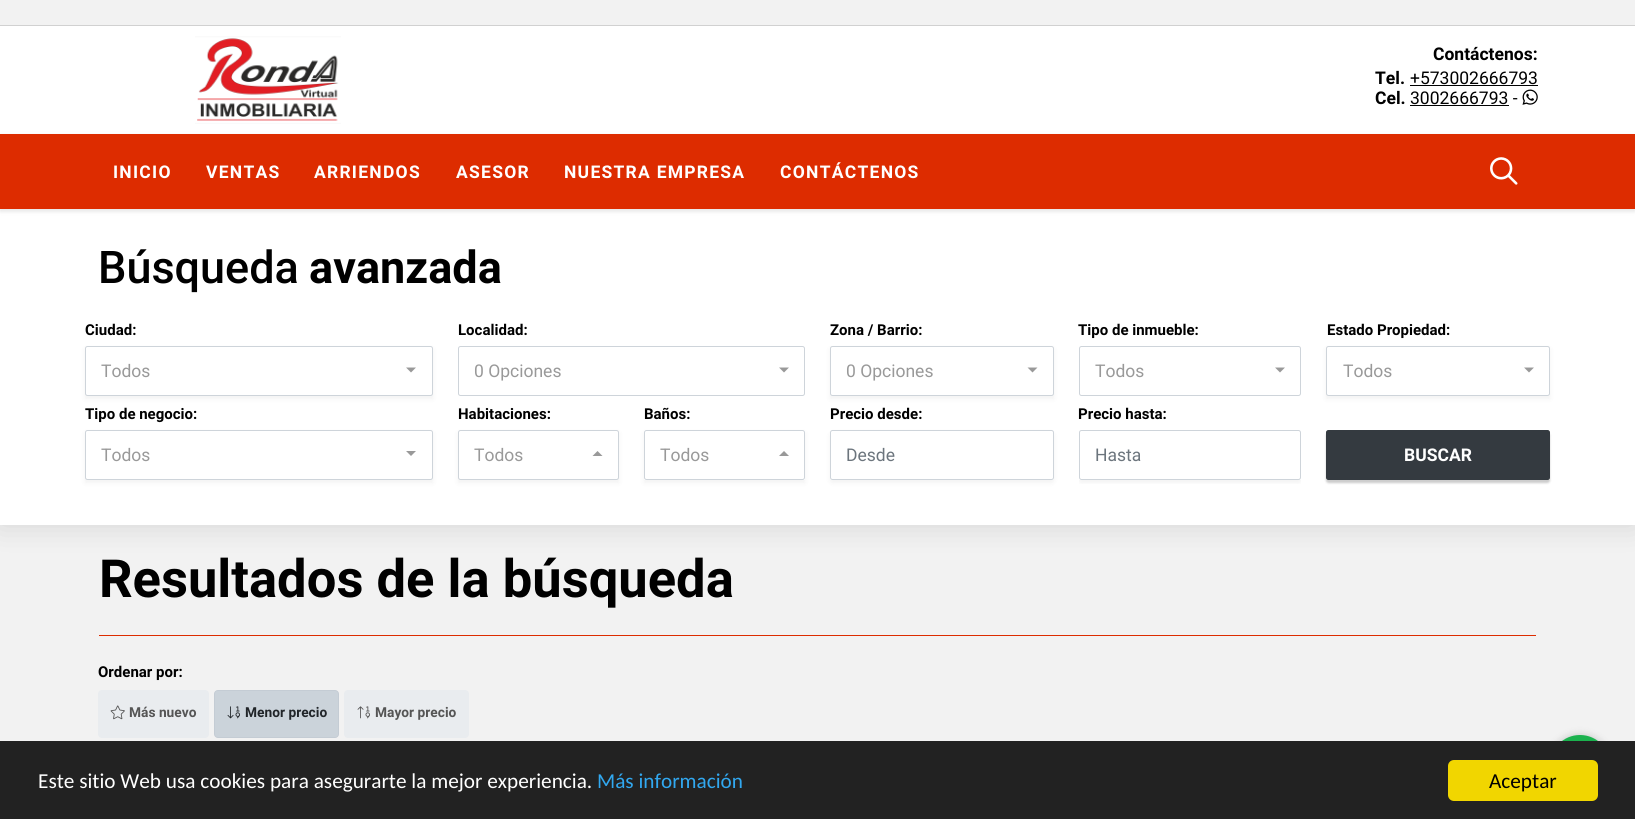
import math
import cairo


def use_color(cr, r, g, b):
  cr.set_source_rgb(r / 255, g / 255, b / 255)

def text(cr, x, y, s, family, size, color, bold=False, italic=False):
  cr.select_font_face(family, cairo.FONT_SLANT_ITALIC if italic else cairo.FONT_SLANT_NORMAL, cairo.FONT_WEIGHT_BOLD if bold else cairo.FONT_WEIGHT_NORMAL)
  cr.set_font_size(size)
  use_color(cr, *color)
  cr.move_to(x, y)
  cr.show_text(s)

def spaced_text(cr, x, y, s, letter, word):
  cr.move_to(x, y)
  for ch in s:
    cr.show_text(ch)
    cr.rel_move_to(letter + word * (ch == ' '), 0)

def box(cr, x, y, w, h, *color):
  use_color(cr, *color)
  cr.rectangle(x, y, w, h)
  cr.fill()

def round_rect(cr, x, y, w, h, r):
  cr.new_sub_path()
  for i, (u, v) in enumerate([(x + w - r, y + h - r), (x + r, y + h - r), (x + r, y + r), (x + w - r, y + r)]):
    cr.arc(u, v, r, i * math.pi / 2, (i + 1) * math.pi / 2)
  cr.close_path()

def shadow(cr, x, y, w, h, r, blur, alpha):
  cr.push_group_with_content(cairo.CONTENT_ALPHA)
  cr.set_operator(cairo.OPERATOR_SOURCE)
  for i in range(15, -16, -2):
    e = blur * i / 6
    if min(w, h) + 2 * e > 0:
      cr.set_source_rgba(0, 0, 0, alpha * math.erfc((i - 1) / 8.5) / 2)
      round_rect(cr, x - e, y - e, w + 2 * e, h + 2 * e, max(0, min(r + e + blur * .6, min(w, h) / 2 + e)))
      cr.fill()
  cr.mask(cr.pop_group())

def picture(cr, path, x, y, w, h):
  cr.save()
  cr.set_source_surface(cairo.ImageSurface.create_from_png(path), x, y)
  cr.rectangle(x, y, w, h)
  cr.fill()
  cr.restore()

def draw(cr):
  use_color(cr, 242, 242, 242)
  cr.paint()
  box(cr, 0, 25, 1635, 1, 209, 209, 209)
  box(cr, 0, 26, 1635, 108, 255, 255, 255)
  picture(cr, "img_01.png", 195, 36, 146, 88)
  box(cr, 1410, 85, 128, 1, 0, 0, 0)
  box(cr, 1410, 105, 99, 1, 0, 0, 0)
  picture(cr, "img_02.png", 1522, 89, 16, 16)
  use_color(cr, 0, 0, 0)
  shadow(cr, 0, 209, 1635, 316, 0, 15, 0.13)
  box(cr, 0, 209, 1635, 316, 255, 255, 255)
  use_color(cr, 0, 0, 0)
  shadow(cr, 0, 136, 1635, 75, 0, 2.5, 0.12)
  box(cr, 0, 134, 1635, 75, 221, 44, 0)
  picture(cr, "img_03.png", 1490, 157, 28, 28)
  use_color(cr, 0, 0, 0)
  shadow(cr, 85, 349, 348, 50, 0, 2.5, 0.05)
  use_color(cr, 255, 255, 255)
  round_rect(cr, 85.5, 346.5, 347, 49, 2)
  cr.fill_preserve()
  use_color(cr, 206, 212, 218)
  cr.set_line_width(1)
  cr.stroke()
  use_color(cr, 153, 153, 153)
  cr.new_path()
  cr.move_to(406, 367.5)
  cr.line_to(416, 367.5)
  cr.line_to(411, 372.5)
  cr.close_path()
  cr.fill()
  round_rect(cr, 458.5, 346.5, 346, 49, 2)
  use_color(cr, 206, 212, 218)
  cr.stroke()
  use_color(cr, 153, 153, 153)
  cr.new_path()
  cr.move_to(779, 367.5)
  cr.line_to(789, 367.5)
  cr.line_to(784, 372.5)
  cr.close_path()
  cr.fill()
  use_color(cr, 0, 0, 0)
  shadow(cr, 830, 349, 224, 50, 0, 2.5, 0.05)
  use_color(cr, 255, 255, 255)
  round_rect(cr, 830.5, 346.5, 223, 49, 2)
  cr.fill_preserve()
  use_color(cr, 206, 212, 218)
  cr.stroke()
  use_color(cr, 153, 153, 153)
  cr.new_path()
  cr.move_to(1027.5, 367.5)
  cr.line_to(1037.5, 367.5)
  cr.line_to(1032.5, 372.5)
  cr.close_path()
  cr.fill()
  round_rect(cr, 1079.5, 346.5, 221, 49, 2)
  use_color(cr, 206, 212, 218)
  cr.stroke()
  use_color(cr, 153, 153, 153)
  cr.new_path()
  cr.move_to(1275, 367.5)
  cr.line_to(1285, 367.5)
  cr.line_to(1280, 372.5)
  cr.close_path()
  cr.fill()
  use_color(cr, 0, 0, 0)
  shadow(cr, 1326, 349, 224, 50, 0, 2.5, 0.05)
  use_color(cr, 255, 255, 255)
  round_rect(cr, 1326.5, 346.5, 223, 49, 2)
  cr.fill_preserve()
  use_color(cr, 206, 212, 218)
  cr.stroke()
  use_color(cr, 153, 153, 153)
  cr.new_path()
  cr.move_to(1524, 367.5)
  cr.line_to(1534, 367.5)
  cr.line_to(1529, 372.5)
  cr.close_path()
  cr.fill()
  use_color(cr, 0, 0, 0)
  shadow(cr, 85, 433, 348, 50, 0, 2.5, 0.05)
  use_color(cr, 255, 255, 255)
  round_rect(cr, 85.5, 430.5, 347, 49, 2)
  cr.fill_preserve()
  use_color(cr, 206, 212, 218)
  cr.stroke()
  use_color(cr, 153, 153, 153)
  cr.new_path()
  cr.move_to(406, 451)
  cr.line_to(416, 451)
  cr.line_to(411, 456)
  cr.close_path()
  cr.fill()
  use_color(cr, 0, 0, 0)
  shadow(cr, 458, 433, 161, 50, 0, 2.5, 0.05)
  use_color(cr, 255, 255, 255)
  round_rect(cr, 458.5, 430.5, 160, 49, 2)
  cr.fill_preserve()
  use_color(cr, 206, 212, 218)
  cr.stroke()
  use_color(cr, 153, 153, 153)
  cr.new_path()
  cr.move_to(602.5, 456)
  cr.line_to(592.5, 456)
  cr.line_to(597.5, 451)
  cr.close_path()
  cr.fill()
  cr.save()
  cr.set_fill_rule(cairo.FILL_RULE_EVEN_ODD)
  cr.new_path()
  cr.move_to(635, 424)
  cr.line_to(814, 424)
  cr.line_to(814, 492)
  cr.line_to(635, 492)
  cr.close_path()
  cr.move_to(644, 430)
  cr.line_to(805, 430)
  cr.line_to(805, 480)
  cr.line_to(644, 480)
  cr.close_path()
  cr.clip()
  use_color(cr, 0, 0, 0)
  shadow(cr, 644, 433, 161, 50, 0, 2.5, 0.05)
  cr.restore()
  round_rect(cr, 644.5, 430.5, 160, 49, 2)
  use_color(cr, 206, 212, 218)
  cr.stroke()
  use_color(cr, 153, 153, 153)
  cr.new_path()
  cr.move_to(789, 456)
  cr.line_to(779, 456)
  cr.line_to(784, 451)
  cr.close_path()
  cr.fill()
  cr.save()
  cr.set_fill_rule(cairo.FILL_RULE_EVEN_ODD)
  cr.new_path()
  cr.move_to(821, 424)
  cr.line_to(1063, 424)
  cr.line_to(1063, 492)
  cr.line_to(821, 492)
  cr.close_path()
  cr.move_to(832.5, 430)
  cr.line_to(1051.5, 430)
  cr.curve_to(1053, 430, 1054, 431, 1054, 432.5)
  cr.line_to(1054, 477.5)
  cr.curve_to(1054, 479, 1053, 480, 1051.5, 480)
  cr.line_to(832.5, 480)
  cr.curve_to(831, 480, 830, 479, 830, 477.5)
  cr.line_to(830, 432.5)
  cr.curve_to(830, 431, 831, 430, 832.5, 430)
  cr.close_path()
  cr.clip()
  use_color(cr, 0, 0, 0)
  shadow(cr, 830, 433, 224, 50, 2.5, 2.5, 0.05)
  cr.restore()
  round_rect(cr, 830.5, 430.5, 223, 49, 2)
  use_color(cr, 206, 212, 218)
  cr.stroke()
  cr.save()
  cr.rectangle(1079, 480, 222, 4)
  cr.clip()
  use_color(cr, 0, 0, 0)
  shadow(cr, 1079, 433, 222, 50, 2.5, 2.5, 0.05)
  cr.restore()
  round_rect(cr, 1079.5, 430.5, 221, 49, 2)
  cr.stroke()
  use_color(cr, 0, 0, 0)
  shadow(cr, 1326, 433, 224, 50, 2.5, 1, 0.2)
  use_color(cr, 52, 58, 64)
  round_rect(cr, 1326.5, 430.5, 223, 49, 2)
  cr.fill_preserve()
  cr.stroke()
  box(cr, 99, 635, 1437, 1, 221, 44, 0)
  use_color(cr, 233, 236, 239)
  round_rect(cr, 98, 690, 111, 48, 4)
  cr.fill()
  picture(cr, "img_04.png", 110, 705, 15, 15)
  use_color(cr, 203, 211, 218)
  round_rect(cr, 214.5, 690.5, 124, 47, 3.5)
  cr.fill_preserve()
  use_color(cr, 196, 204, 212)
  cr.stroke()
  picture(cr, "img_05.png", 227, 706, 13, 13)
  use_color(cr, 233, 236, 239)
  round_rect(cr, 344, 690, 125, 48, 4)
  cr.fill()
  picture(cr, "img_06.png", 357, 706, 13, 13)
  use_color(cr, 0, 0, 0)
  shadow(cr, 1550, 735, 60, 60, 30, 4, 0.2)
  use_color(cr, 27, 178, 78)
  cr.arc(1580, 765, 30, 0, 2 * math.pi)
  cr.fill()
  box(cr, 0, 741, 1635, 78, 34, 34, 34)
  use_color(cr, 241, 214, 0)
  round_rect(cr, 1448, 760, 150, 41, 6)
  cr.fill()
  text(cr, 1433, 60, "Contáctenos:", "Roboto", 17.5, (0, 0, 0), bold=True)
  text(cr, 1375, 84, "Tel.", "Roboto", 17.5, (0, 0, 0), bold=True)
  text(cr, 1410, 84, "+573002666793", "Roboto", 17.5, (0, 0, 0))
  text(cr, 1375, 104, "Cel.", "Roboto", 17.5, (0, 0, 0), bold=True)
  text(cr, 1410, 104, "3002666793 -", "Roboto", 17.5, (0, 0, 0))
  cr.select_font_face("Roboto", cairo.FONT_SLANT_NORMAL, cairo.FONT_WEIGHT_BOLD)
  use_color(cr, 255, 255, 255)
  spaced_text(cr, 113, 178, "INICIO", 1.25, 0)
  spaced_text(cr, 206, 178, "VENTAS", 1.25, 0)
  spaced_text(cr, 314, 178, "ARRIENDOS", 1.25, 0)
  spaced_text(cr, 456, 178, "ASESOR", 1.25, 0)
  spaced_text(cr, 564, 178, "NUESTRA EMPRESA", 1.25, 0)
  spaced_text(cr, 780, 178, "CONTÁCTENOS", 1.25, 0)
  text(cr, 98, 283, "Búsqueda", "Roboto Medium", 45, (0, 0, 0))
  text(cr, 309, 283, "avanzada", "Roboto", 45, (0, 0, 0), bold=True)
  text(cr, 85, 335, "Ciudad:", "Roboto", 15, (0, 0, 0), bold=True)
  text(cr, 101, 377, "Todos", "Roboto", 17.5, (153, 153, 153))
  text(cr, 458, 335, "Localidad:", "Roboto", 15, (0, 0, 0), bold=True)
  text(cr, 474, 377, "0 Opciones", "Roboto", 17.5, (153, 153, 153))
  text(cr, 830, 335, "Zona / Barrio:", "Roboto", 15, (0, 0, 0), bold=True)
  text(cr, 846, 377, "0 Opciones", "Roboto", 17.5, (153, 153, 153))
  text(cr, 1078, 335, "Tipo de inmueble:", "Roboto", 15, (0, 0, 0), bold=True)
  text(cr, 1095, 377, "Todos", "Roboto", 17.5, (153, 153, 153))
  text(cr, 1327, 335, "Estado Propiedad:", "Roboto", 15, (0, 0, 0), bold=True)
  text(cr, 1343, 377, "Todos", "Roboto", 17.5, (153, 153, 153))
  text(cr, 85, 419, "Tipo de negocio:", "Roboto", 15, (0, 0, 0), bold=True)
  text(cr, 101, 461, "Todos", "Roboto", 17.5, (153, 153, 153))
  text(cr, 458, 419, "Habitaciones:", "Roboto", 15, (0, 0, 0), bold=True)
  text(cr, 474, 461, "Todos", "Roboto", 17.5, (153, 153, 153))
  text(cr, 644, 419, "Baños:", "Roboto", 15, (0, 0, 0), bold=True)
  text(cr, 660, 461, "Todos", "Roboto", 17.5, (153, 153, 153))
  text(cr, 830, 419, "Precio desde:", "Roboto", 15, (0, 0, 0), bold=True)
  text(cr, 846, 461, "Desde", "Roboto", 17.5, (108, 117, 125))
  text(cr, 1078, 419, "Precio hasta:", "Roboto", 15, (0, 0, 0), bold=True)
  text(cr, 1095, 461, "Hasta", "Roboto", 17.5, (108, 117, 125))
  text(cr, 1404, 461, "BUSCAR", "Roboto", 17.5, (255, 255, 255), bold=True)
  text(cr, 99, 597, "Resultados de la búsqueda", "Roboto", 52.5, (0, 0, 0), bold=True)
  text(cr, 98, 677, "Ordenar por:", "Roboto", 15, (0, 0, 0), bold=True)
  text(cr, 129, 717, "Más nuevo", "Roboto", 13.75, (85, 85, 85), bold=True)
  text(cr, 245, 717, "Menor precio", "Roboto", 13.75, (33, 37, 41), bold=True)
  text(cr, 375, 717, "Mayor precio", "Roboto", 13.75, (85, 85, 85), bold=True)
  text(cr, 38, 788, "Este sitio Web usa cookies para asegurarte la mejor experiencia.", "Carlito", 21.25, (255, 255, 255))
  text(cr, 597, 788, "Más información", "Carlito", 21.25, (49, 168, 240))
  text(cr, 1489, 788, "Aceptar", "Carlito", 21.25, (0, 0, 0))


surface = cairo.ImageSurface(cairo.FORMAT_RGB24, 1635, 819)
cr = cairo.Context(surface)
options = cairo.FontOptions()
options.set_hint_metrics(cairo.HINT_METRICS_OFF)
options.set_hint_style(cairo.HINT_STYLE_NONE)
cr.set_font_options(options)
cr.set_miter_limit(4)
draw(cr)
surface.write_to_png("out.png")
